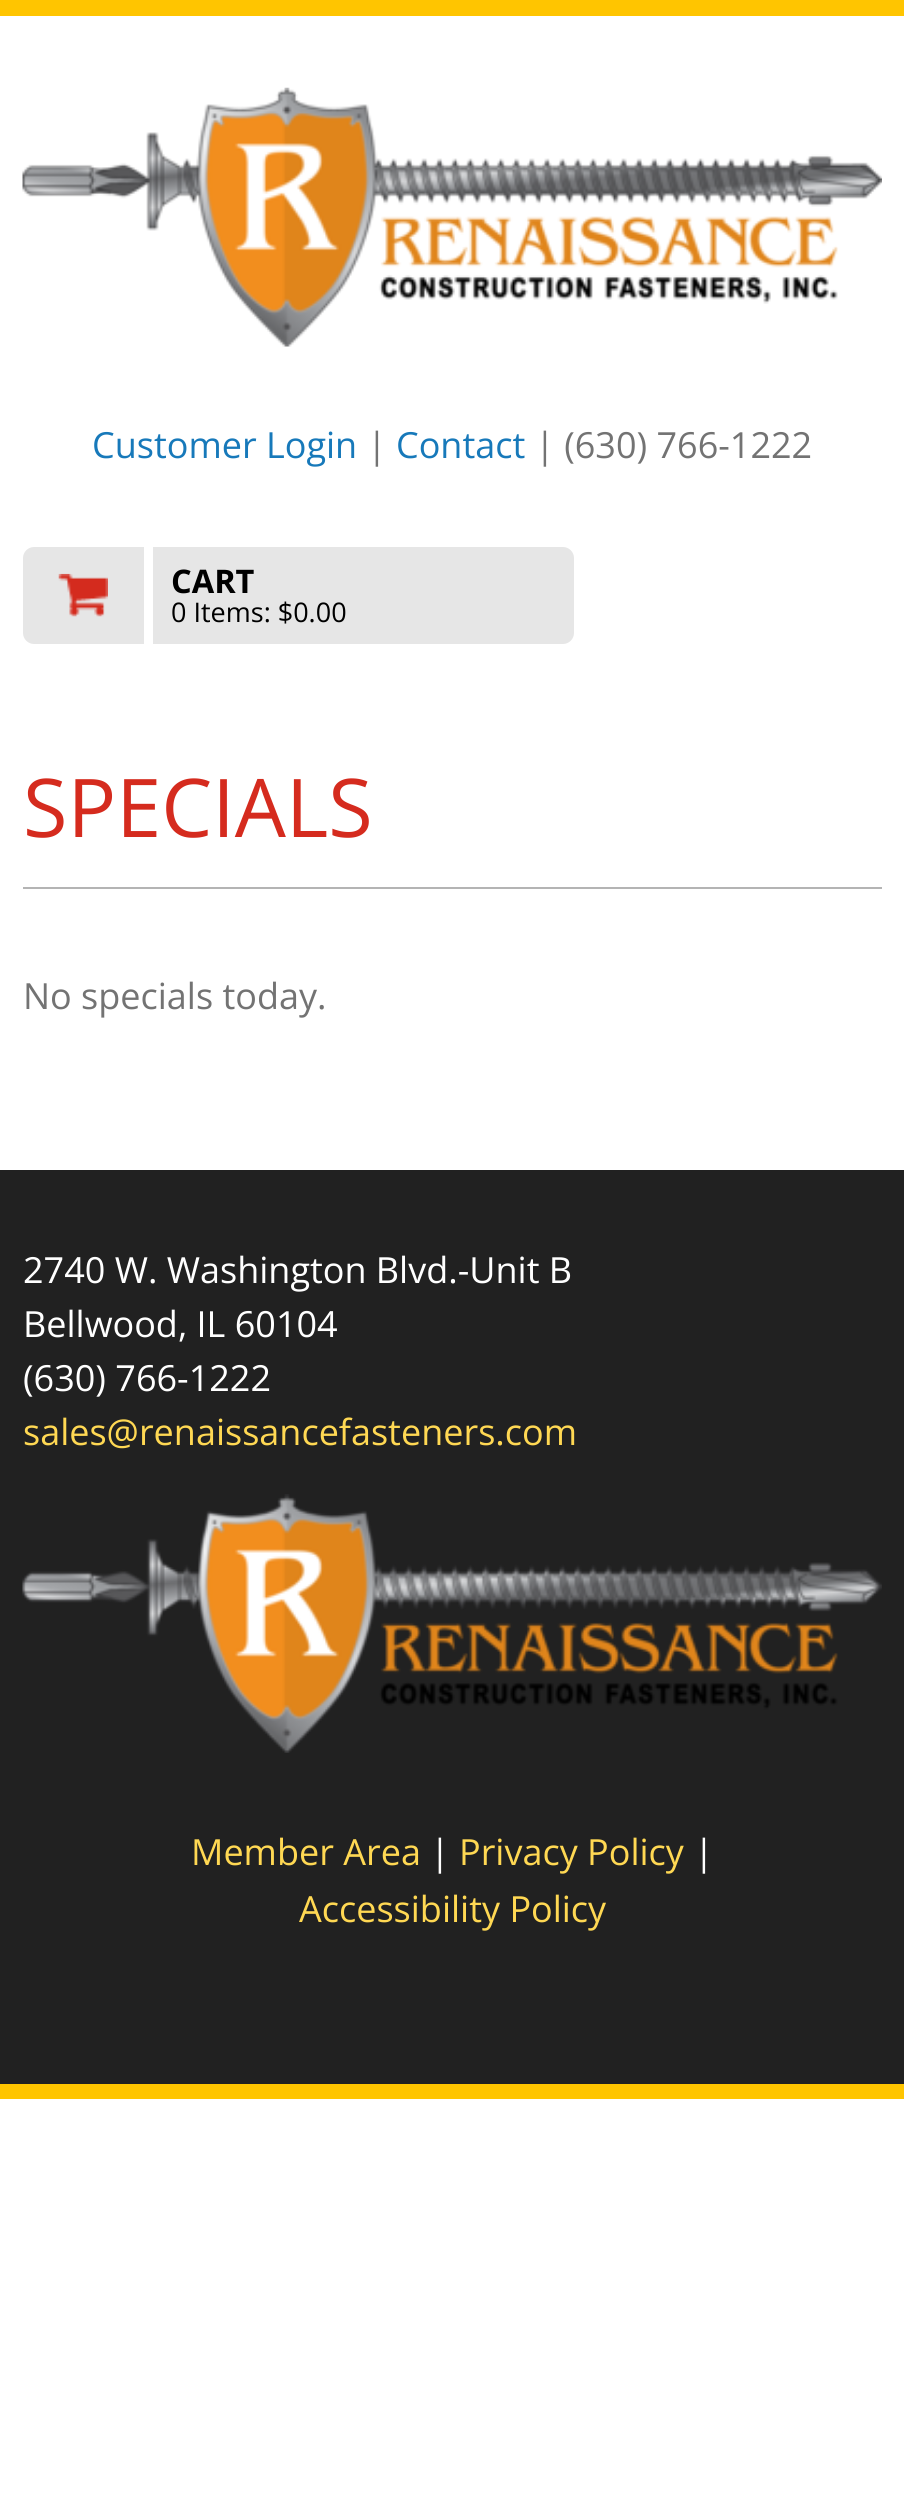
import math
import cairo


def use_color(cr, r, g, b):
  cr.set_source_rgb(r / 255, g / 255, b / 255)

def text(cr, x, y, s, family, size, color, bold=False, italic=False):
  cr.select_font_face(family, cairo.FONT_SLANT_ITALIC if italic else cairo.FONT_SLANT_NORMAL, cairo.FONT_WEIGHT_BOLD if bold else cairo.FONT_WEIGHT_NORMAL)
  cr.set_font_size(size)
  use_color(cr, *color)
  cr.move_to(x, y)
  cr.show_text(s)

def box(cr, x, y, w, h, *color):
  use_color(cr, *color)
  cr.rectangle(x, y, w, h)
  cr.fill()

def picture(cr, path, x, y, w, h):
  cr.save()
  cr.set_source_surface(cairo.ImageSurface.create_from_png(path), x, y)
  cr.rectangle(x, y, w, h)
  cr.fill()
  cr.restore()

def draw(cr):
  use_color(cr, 255, 255, 255)
  cr.paint()
  box(cr, 0, 0, 904, 16, 255, 197, 0)
  picture(cr, "img_01.png", 22, 87, 860, 260)
  use_color(cr, 230, 230, 230)
  cr.new_path()
  cr.move_to(34, 547)
  cr.line_to(144, 547)
  cr.line_to(144, 644)
  cr.line_to(34, 644)
  cr.curve_to(28, 644, 23, 639, 23, 633)
  cr.line_to(23, 558)
  cr.curve_to(23, 552, 28, 547, 34, 547)
  cr.close_path()
  cr.fill()
  picture(cr, "img_02.png", 58, 573, 50, 44)
  cr.new_path()
  cr.move_to(153, 547)
  cr.line_to(563, 547)
  cr.curve_to(569, 547, 574, 552, 574, 558)
  cr.line_to(574, 633)
  cr.curve_to(574, 639, 569, 644, 563, 644)
  cr.line_to(153, 644)
  cr.close_path()
  cr.fill()
  box(cr, 23, 887, 859, 2, 180, 180, 180)
  box(cr, 0, 1170, 904, 914, 33, 33, 33)
  box(cr, 0, 2084, 904, 15, 255, 197, 0)
  picture(cr, "img_03.png", 22, 1494, 860, 259)
  text(cr, 92, 458, "Customer Login", "Open Sans", 36, (23, 121, 186))
  text(cr, 367, 458, "|", "Open Sans", 36, (115, 115, 115))
  text(cr, 396, 458, "Contact", "Open Sans", 36, (23, 121, 186))
  text(cr, 535, 458, "| (630) 766-1222", "Open Sans", 36, (115, 115, 115))
  text(cr, 171, 593, "CART", "Open Sans", 32.5, (0, 0, 0), bold=True)
  text(cr, 171, 622, "0 Items: $0.00", "Open Sans", 27, (0, 0, 0))
  text(cr, 23, 837, "SPECIALS", "Open Sans", 81, (213, 43, 30))
  text(cr, 23, 1009, "No specials today.", "Open Sans", 36, (115, 115, 115))
  text(cr, 23, 1283, "2740 W. Washington Blvd.-Unit B", "Open Sans", 36, (255, 255, 255))
  text(cr, 23, 1337, "Bellwood, IL 60104", "Open Sans", 36, (255, 255, 255))
  text(cr, 23, 1391, "(630) 766-1222", "Open Sans", 36, (255, 255, 255))
  text(cr, 23, 1445, "sales@renaissancefasteners.com", "Open Sans", 36, (255, 216, 83))
  text(cr, 191, 1865, "Member Area", "Open Sans", 36, (255, 216, 83))
  text(cr, 430, 1865, "|", "Open Sans", 36, (255, 255, 255))
  text(cr, 459, 1865, "Privacy Policy", "Open Sans", 36, (255, 216, 83))
  text(cr, 694, 1865, "|", "Open Sans", 36, (255, 255, 255))
  text(cr, 299, 1922, "Accessibility Policy", "Open Sans", 36, (255, 216, 83))


surface = cairo.ImageSurface(cairo.FORMAT_RGB24, 904, 2506)
cr = cairo.Context(surface)
options = cairo.FontOptions()
options.set_hint_metrics(cairo.HINT_METRICS_OFF)
options.set_hint_style(cairo.HINT_STYLE_NONE)
cr.set_font_options(options)
cr.set_miter_limit(4)
draw(cr)
surface.write_to_png("out.png")
